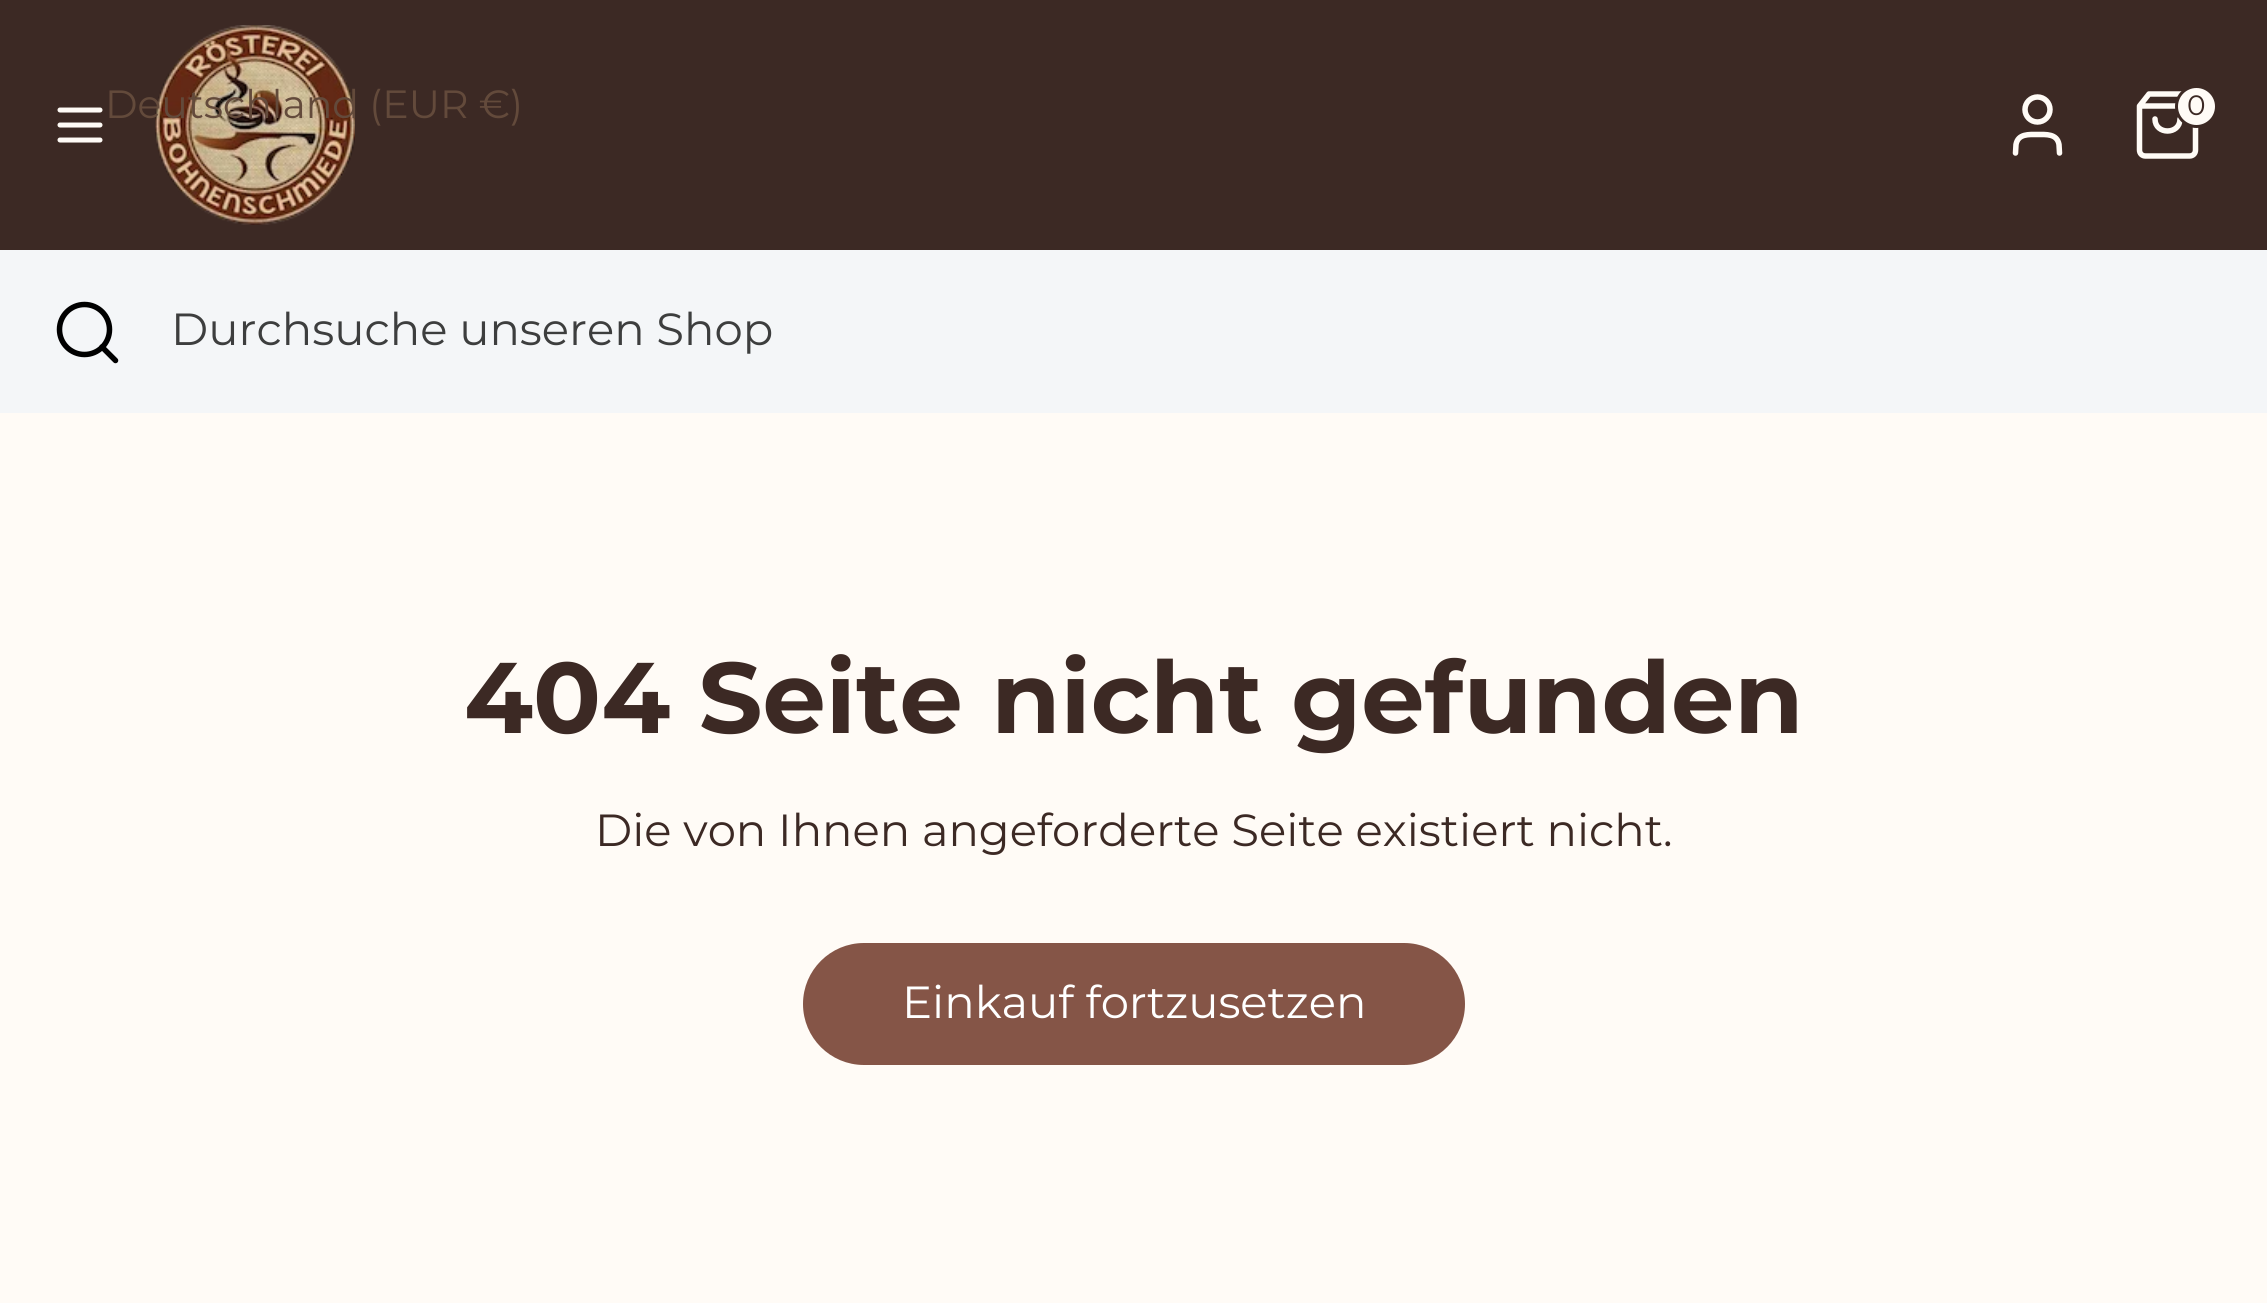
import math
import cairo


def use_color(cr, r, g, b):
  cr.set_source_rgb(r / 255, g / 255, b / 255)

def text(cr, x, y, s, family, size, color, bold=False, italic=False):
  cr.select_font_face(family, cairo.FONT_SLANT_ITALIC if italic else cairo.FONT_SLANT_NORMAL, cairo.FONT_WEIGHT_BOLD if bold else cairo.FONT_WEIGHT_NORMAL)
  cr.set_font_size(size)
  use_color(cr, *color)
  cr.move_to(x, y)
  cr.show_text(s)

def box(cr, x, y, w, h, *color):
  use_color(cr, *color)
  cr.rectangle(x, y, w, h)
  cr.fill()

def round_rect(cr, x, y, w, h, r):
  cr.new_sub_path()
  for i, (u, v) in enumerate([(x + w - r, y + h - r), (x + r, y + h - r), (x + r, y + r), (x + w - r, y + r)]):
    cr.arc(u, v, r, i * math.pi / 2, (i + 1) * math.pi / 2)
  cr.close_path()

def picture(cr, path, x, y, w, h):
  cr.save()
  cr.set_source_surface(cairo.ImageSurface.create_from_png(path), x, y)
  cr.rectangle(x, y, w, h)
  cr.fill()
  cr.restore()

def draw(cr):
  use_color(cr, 255, 251, 246)
  cr.paint()
  box(cr, 0, 250, 2267, 163, 244, 246, 248)
  cr.arc(84.5, 329.5, 25, 0, 2 * math.pi)
  use_color(cr, 0, 0, 0)
  cr.set_line_width(5.5)
  cr.stroke()
  cr.new_path()
  cr.move_to(115.5, 360.5)
  cr.line_to(102, 347)
  cr.set_line_cap(cairo.LINE_CAP_ROUND)
  cr.set_line_join(cairo.LINE_JOIN_ROUND)
  cr.stroke()
  box(cr, 0, 0, 2267, 250, 60, 41, 36)
  cr.new_path()
  cr.move_to(60, 125)
  cr.line_to(100, 125)
  cr.move_to(60, 110)
  cr.line_to(100, 110)
  cr.move_to(60, 140)
  cr.line_to(100, 140)
  use_color(cr, 255, 251, 246)
  cr.set_line_width(5)
  cr.stroke()
  picture(cr, "img_01.png", 155, 25, 200, 200)
  cr.new_path()
  cr.move_to(2059.5, 153)
  cr.line_to(2059, 144.5)
  cr.curve_to(2057, 133.5, 2046, 134.5, 2037.5, 134.5)
  cr.curve_to(2029, 134.5, 2018, 133.5, 2016, 144.5)
  cr.line_to(2015.5, 153)
  cr.set_line_width(5.5)
  cr.stroke()
  cr.arc(2037.5, 109.5, 12.5, 0, 2 * math.pi)
  cr.set_line_cap(cairo.LINE_CAP_BUTT)
  cr.set_line_join(cairo.LINE_JOIN_MITER)
  cr.stroke()
  cr.new_path()
  cr.move_to(2149, 94)
  cr.line_to(2139.5, 106)
  cr.line_to(2139.5, 150)
  cr.curve_to(2139.5, 153.5, 2142, 156, 2145.5, 156)
  cr.line_to(2189.5, 156)
  cr.curve_to(2193, 156, 2195.5, 153.5, 2195.5, 150)
  cr.line_to(2195.5, 106)
  cr.line_to(2186, 94)
  cr.close_path()
  cr.move_to(2139.5, 106)
  cr.line_to(2195.5, 106)
  cr.set_line_cap(cairo.LINE_CAP_ROUND)
  cr.set_line_join(cairo.LINE_JOIN_ROUND)
  cr.stroke()
  cr.new_path()
  cr.move_to(2180, 119)
  cr.curve_to(2180, 135, 2155, 135, 2155, 119)
  cr.stroke()
  cr.arc(2196.5, 106.5, 20, 0, 2 * math.pi)
  cr.fill_preserve()
  use_color(cr, 60, 41, 36)
  cr.set_line_width(3)
  cr.set_line_cap(cairo.LINE_CAP_BUTT)
  cr.set_line_join(cairo.LINE_JOIN_MITER)
  cr.stroke()
  round_rect(cr, 804.5, 944.5, 659, 119, 59.5)
  use_color(cr, 133, 85, 71)
  cr.stroke()
  round_rect(cr, 805, 945, 658, 118, 59)
  cr.fill()
  text(cr, 105, 118, "Deutschland (EUR €)", "Montserrat", 39.4, (99, 74, 59))
  text(cr, 171, 345, "Durchsuche unseren Shop", "Montserrat", 45, (61, 62, 62))
  text(cr, 2187, 115, "0", "Montserrat", 28, (60, 41, 36))
  text(cr, 464, 733, "404 Seite nicht gefunden", "Montserrat", 100.25, (60, 41, 36), bold=True)
  text(cr, 595, 846, "Die von Ihnen angeforderte Seite existiert nicht.", "Montserrat", 45, (60, 41, 36))
  text(cr, 902, 1018, "Einkauf fortzusetzen", "Montserrat", 45, (255, 255, 255))


surface = cairo.ImageSurface(cairo.FORMAT_RGB24, 2267, 1303)
cr = cairo.Context(surface)
options = cairo.FontOptions()
options.set_hint_metrics(cairo.HINT_METRICS_OFF)
options.set_hint_style(cairo.HINT_STYLE_NONE)
cr.set_font_options(options)
cr.set_miter_limit(4)
draw(cr)
surface.write_to_png("out.png")
